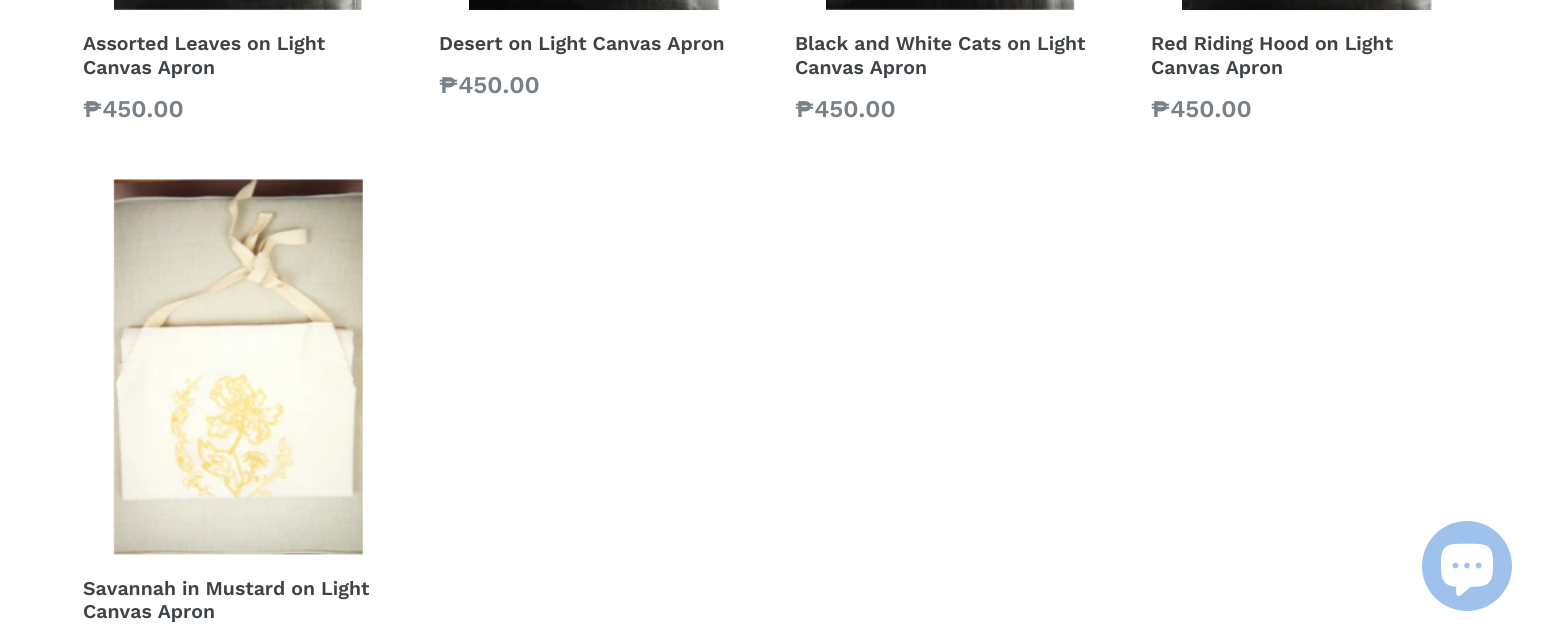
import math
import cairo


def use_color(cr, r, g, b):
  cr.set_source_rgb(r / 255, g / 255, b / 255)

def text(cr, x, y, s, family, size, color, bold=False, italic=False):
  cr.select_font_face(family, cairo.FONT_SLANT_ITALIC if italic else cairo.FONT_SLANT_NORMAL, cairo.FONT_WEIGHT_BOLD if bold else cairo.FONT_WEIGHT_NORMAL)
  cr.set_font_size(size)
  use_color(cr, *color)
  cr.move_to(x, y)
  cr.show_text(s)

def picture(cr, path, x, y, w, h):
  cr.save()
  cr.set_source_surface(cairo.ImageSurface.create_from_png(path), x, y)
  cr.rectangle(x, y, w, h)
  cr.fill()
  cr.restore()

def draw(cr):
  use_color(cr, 255, 255, 255)
  cr.paint()
  picture(cr, "img_01.png", 114, 0, 248, 10)
  picture(cr, "img_02.png", 469, 0, 251, 10)
  picture(cr, "img_03.png", 826, 0, 249, 10)
  picture(cr, "img_04.png", 1182, 0, 250, 10)
  picture(cr, "img_05.png", 113, 179, 250, 376)
  use_color(cr, 159, 194, 237)
  cr.arc(1467, 566, 45, 0, 2 * math.pi)
  cr.fill()
  picture(cr, "img_06.png", 1440, 543, 54, 53)
  text(cr, 83, 50, "Assorted Leaves on Light", "Work Sans SemiBold", 19.5, (61, 66, 70))
  text(cr, 83, 74, "Canvas Apron", "Work Sans SemiBold", 19.5, (61, 66, 70))
  text(cr, 83, 117, "₱450.00", "Work Sans SemiBold", 24, (120, 129, 136))
  text(cr, 439, 50, "Desert on Light Canvas Apron", "Work Sans SemiBold", 19.5, (61, 66, 70))
  text(cr, 439, 93, "₱450.00", "Work Sans SemiBold", 24, (120, 129, 136))
  text(cr, 795, 50, "Black and White Cats on Light", "Work Sans SemiBold", 19.5, (61, 66, 70))
  text(cr, 795, 74, "Canvas Apron", "Work Sans SemiBold", 19.5, (61, 66, 70))
  text(cr, 795, 117, "₱450.00", "Work Sans SemiBold", 24, (120, 129, 136))
  text(cr, 1151, 50, "Red Riding Hood on Light", "Work Sans SemiBold", 19.5, (61, 66, 70))
  text(cr, 1151, 74, "Canvas Apron", "Work Sans SemiBold", 19.5, (61, 66, 70))
  text(cr, 1151, 117, "₱450.00", "Work Sans SemiBold", 24, (120, 129, 136))
  text(cr, 83, 595, "Savannah in Mustard on Light", "Work Sans SemiBold", 19.5, (61, 66, 70))
  text(cr, 83, 618, "Canvas Apron", "Work Sans SemiBold", 19.5, (61, 66, 70))


surface = cairo.ImageSurface(cairo.FORMAT_RGB24, 1544, 642)
cr = cairo.Context(surface)
options = cairo.FontOptions()
options.set_hint_metrics(cairo.HINT_METRICS_OFF)
options.set_hint_style(cairo.HINT_STYLE_NONE)
cr.set_font_options(options)
cr.set_miter_limit(4)
draw(cr)
surface.write_to_png("out.png")
